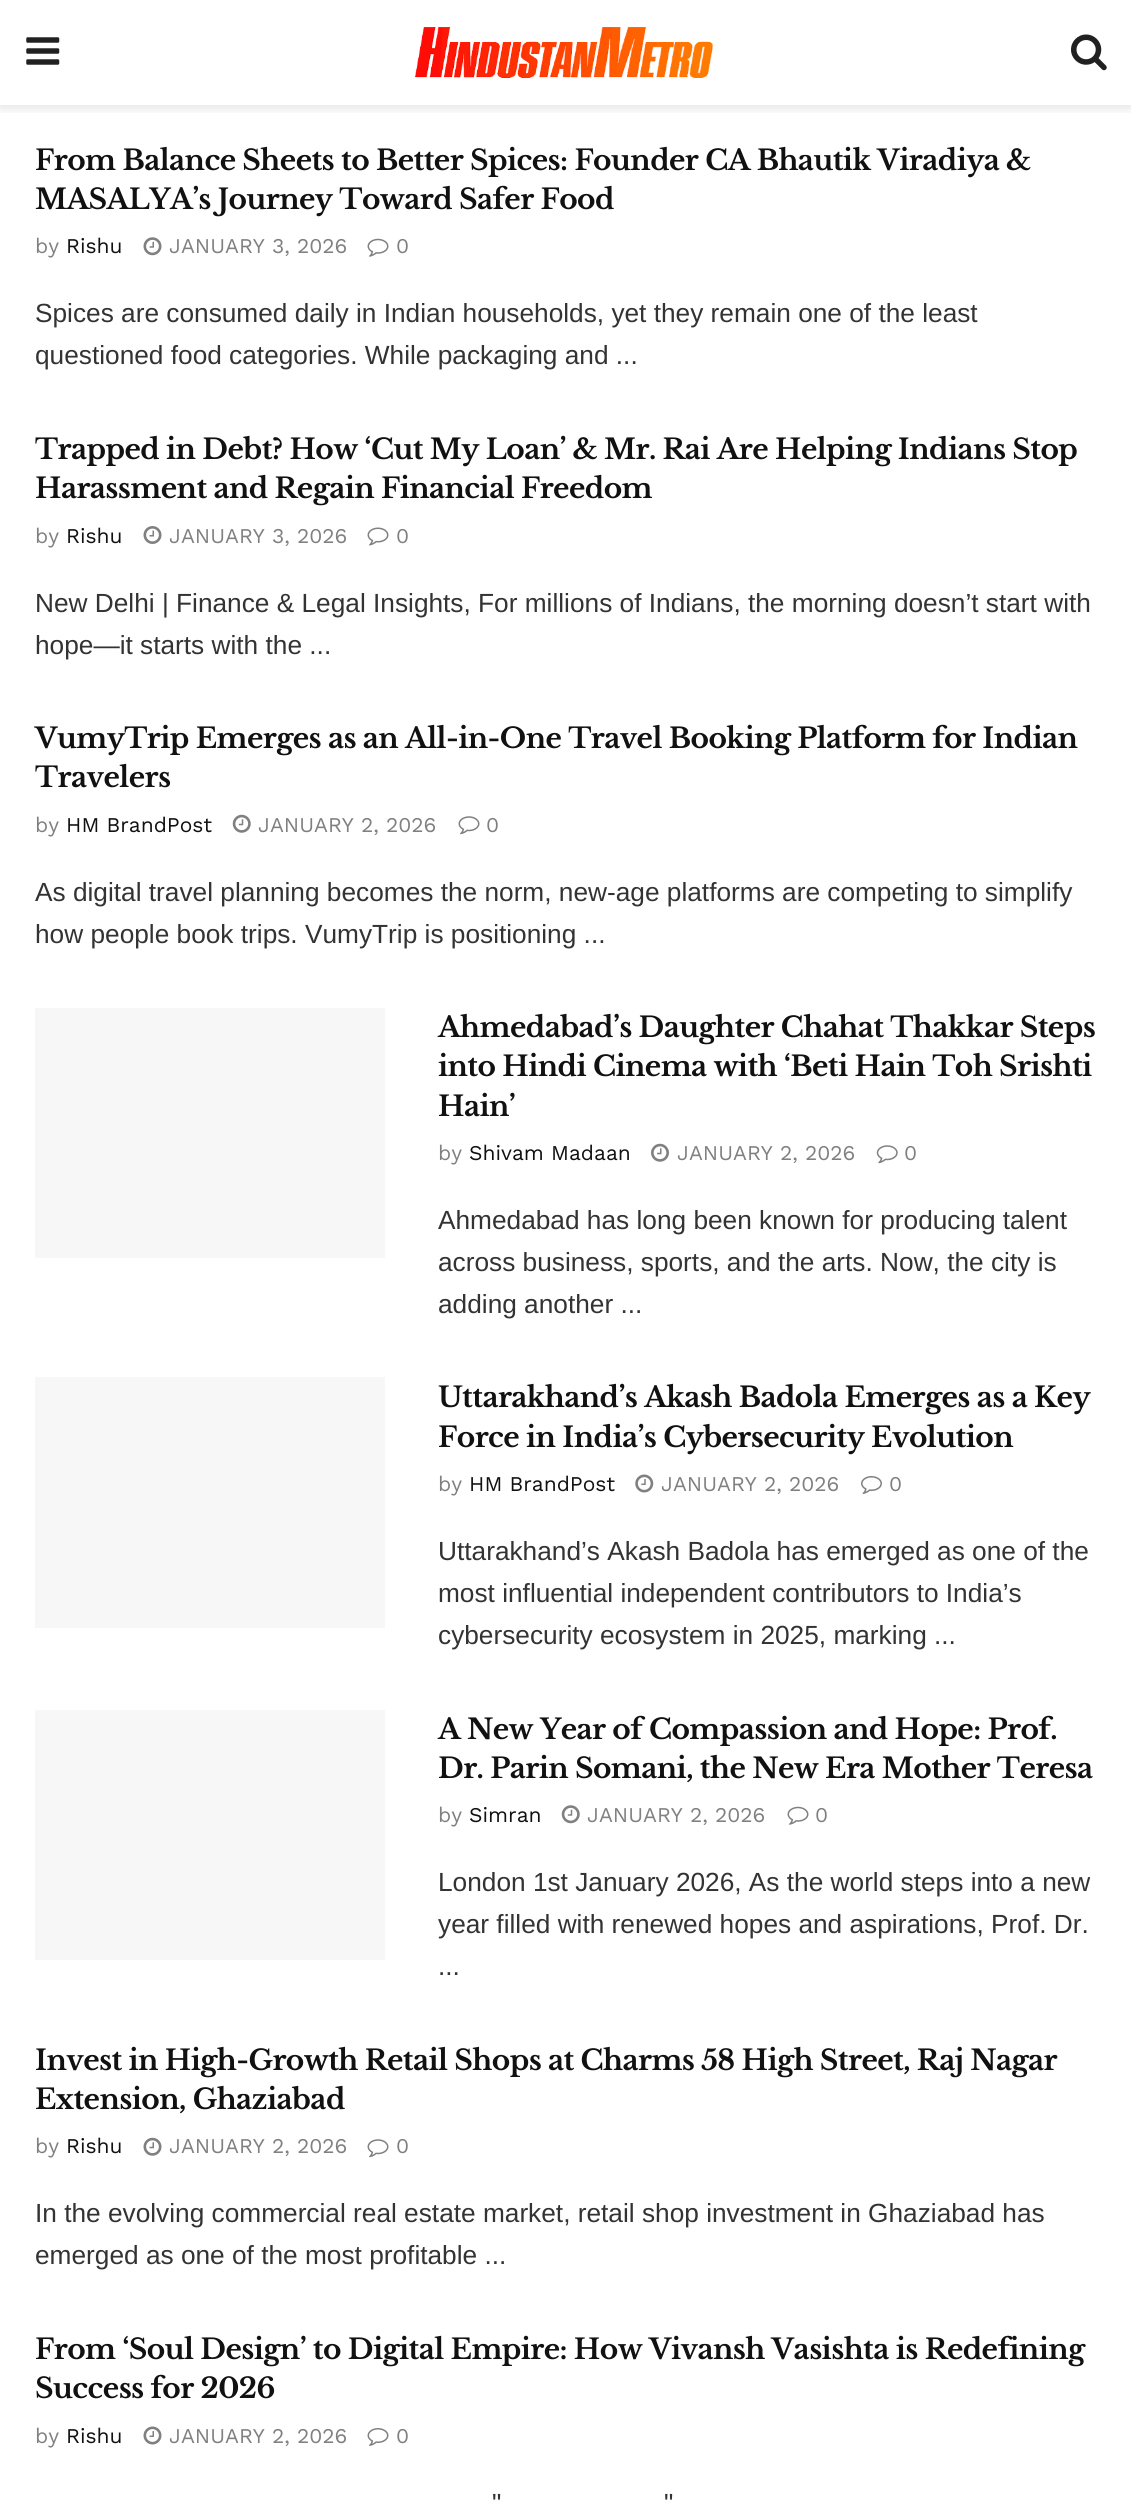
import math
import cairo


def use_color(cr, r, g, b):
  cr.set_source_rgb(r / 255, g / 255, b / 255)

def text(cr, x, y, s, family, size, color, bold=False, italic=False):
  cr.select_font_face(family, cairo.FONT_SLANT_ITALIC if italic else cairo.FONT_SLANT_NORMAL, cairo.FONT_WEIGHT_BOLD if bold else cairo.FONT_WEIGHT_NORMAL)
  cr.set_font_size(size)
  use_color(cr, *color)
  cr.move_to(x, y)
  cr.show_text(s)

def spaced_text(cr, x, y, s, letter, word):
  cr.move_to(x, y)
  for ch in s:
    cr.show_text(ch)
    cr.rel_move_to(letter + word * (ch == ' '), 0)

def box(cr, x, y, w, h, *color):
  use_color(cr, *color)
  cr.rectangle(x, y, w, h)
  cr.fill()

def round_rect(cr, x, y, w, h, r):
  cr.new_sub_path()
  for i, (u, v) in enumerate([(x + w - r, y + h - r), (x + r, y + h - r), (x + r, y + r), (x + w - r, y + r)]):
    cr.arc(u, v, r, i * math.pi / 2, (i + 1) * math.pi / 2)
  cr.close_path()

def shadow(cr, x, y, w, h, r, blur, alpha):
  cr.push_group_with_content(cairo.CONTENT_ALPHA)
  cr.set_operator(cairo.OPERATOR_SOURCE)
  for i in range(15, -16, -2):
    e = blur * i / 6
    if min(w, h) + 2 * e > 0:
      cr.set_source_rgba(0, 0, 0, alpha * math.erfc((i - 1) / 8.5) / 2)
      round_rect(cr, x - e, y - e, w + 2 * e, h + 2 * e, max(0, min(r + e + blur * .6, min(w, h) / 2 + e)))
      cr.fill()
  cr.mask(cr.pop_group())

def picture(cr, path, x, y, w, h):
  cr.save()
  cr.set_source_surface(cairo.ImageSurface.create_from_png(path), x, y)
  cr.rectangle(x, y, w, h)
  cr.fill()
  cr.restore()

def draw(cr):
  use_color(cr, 255, 255, 255)
  cr.paint()
  cr.save()
  cr.rectangle(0, 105, 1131, 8)
  cr.clip()
  use_color(cr, 0, 0, 0)
  shadow(cr, 0, 4, 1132, 105, 0, 5, 0.1)
  cr.restore()
  picture(cr, "img_01.png", 26, 37, 34, 28)
  picture(cr, "img_02.png", 415, 27, 299, 51)
  picture(cr, "img_03.png", 1071, 34, 36, 37)
  picture(cr, "img_04.png", 143, 237, 19, 19)
  picture(cr, "img_05.png", 367, 238, 22, 19)
  picture(cr, "img_06.png", 143, 526, 19, 18)
  picture(cr, "img_07.png", 367, 527, 22, 19)
  picture(cr, "img_08.png", 232, 814, 19, 19)
  picture(cr, "img_09.png", 458, 816, 22, 19)
  box(cr, 35, 1008, 350, 250, 247, 247, 247)
  picture(cr, "img_10.png", 651, 1143, 18, 19)
  picture(cr, "img_11.png", 876, 1145, 22, 19)
  box(cr, 35, 1377, 350, 251, 247, 247, 247)
  picture(cr, "img_12.png", 635, 1474, 19, 19)
  picture(cr, "img_13.png", 861, 1476, 21, 18)
  box(cr, 35, 1710, 350, 250, 247, 247, 247)
  picture(cr, "img_14.png", 561, 1805, 19, 19)
  picture(cr, "img_05.png", 787, 1806, 22, 19)
  picture(cr, "img_15.png", 143, 2137, 19, 19)
  picture(cr, "img_09.png", 367, 2139, 22, 19)
  picture(cr, "img_16.png", 143, 2426, 19, 19)
  picture(cr, "img_17.png", 367, 2428, 22, 18)
  cr.select_font_face("Libre Baskerville", cairo.FONT_SLANT_NORMAL, cairo.FONT_WEIGHT_BOLD)
  cr.set_font_size(28)
  use_color(cr, 17, 17, 17)
  spaced_text(cr, 35, 170, "From Balance Sheets to Better Spices: Founder CA Bhautik Viradiya &", -0.55, 0)
  spaced_text(cr, 35, 209, "MASALYA’s Journey Toward Safer Food", -0.55, 0)
  text(cr, 35, 253, "by", "Work Sans", 21, (128, 128, 128))
  text(cr, 66, 253, "Rishu", "Work Sans", 21, (17, 17, 17))
  text(cr, 169, 253, "JANUARY 3, 2026", "Work Sans", 21, (128, 128, 128))
  text(cr, 396, 253, "0", "Work Sans", 21, (128, 128, 128))
  text(cr, 35, 322, "Spices are consumed daily in Indian households, yet they remain one of the least", "Liberation Sans", 26.25, (51, 51, 51))
  text(cr, 35, 364, "questioned food categories. While packaging and ...", "Liberation Sans", 26.25, (51, 51, 51))
  cr.select_font_face("Libre Baskerville", cairo.FONT_SLANT_NORMAL, cairo.FONT_WEIGHT_BOLD)
  cr.set_font_size(28)
  use_color(cr, 17, 17, 17)
  spaced_text(cr, 35, 459, "Trapped in Debt? How ‘Cut My Loan’ & Mr. Rai Are Helping Indians Stop", -0.55, 0)
  spaced_text(cr, 35, 498, "Harassment and Regain Financial Freedom", -0.55, 0)
  text(cr, 35, 543, "by", "Work Sans", 21, (128, 128, 128))
  text(cr, 66, 543, "Rishu", "Work Sans", 21, (17, 17, 17))
  text(cr, 169, 543, "JANUARY 3, 2026", "Work Sans", 21, (128, 128, 128))
  text(cr, 396, 543, "0", "Work Sans", 21, (128, 128, 128))
  text(cr, 35, 612, "New Delhi | Finance & Legal Insights, For millions of Indians, the morning doesn’t start with", "Liberation Sans", 26.25, (51, 51, 51))
  text(cr, 35, 654, "hope—it starts with the ...", "Liberation Sans", 26.25, (51, 51, 51))
  cr.select_font_face("Libre Baskerville", cairo.FONT_SLANT_NORMAL, cairo.FONT_WEIGHT_BOLD)
  cr.set_font_size(28)
  use_color(cr, 17, 17, 17)
  spaced_text(cr, 35, 748, "VumyTrip Emerges as an All-in-One Travel Booking Platform for Indian", -0.55, 0)
  spaced_text(cr, 35, 787, "Travelers", -0.55, 0)
  text(cr, 35, 832, "by", "Work Sans", 21, (128, 128, 128))
  text(cr, 66, 832, "HM BrandPost", "Work Sans", 21, (17, 17, 17))
  text(cr, 258, 832, "JANUARY 2, 2026", "Work Sans", 21, (128, 128, 128))
  text(cr, 486, 832, "0", "Work Sans", 21, (128, 128, 128))
  text(cr, 35, 901, "As digital travel planning becomes the norm, new-age platforms are competing to simplify", "Liberation Sans", 26.25, (51, 51, 51))
  text(cr, 35, 943, "how people book trips. VumyTrip is positioning ...", "Liberation Sans", 26.25, (51, 51, 51))
  cr.select_font_face("Libre Baskerville", cairo.FONT_SLANT_NORMAL, cairo.FONT_WEIGHT_BOLD)
  cr.set_font_size(28)
  use_color(cr, 17, 17, 17)
  spaced_text(cr, 438, 1037, "Ahmedabad’s Daughter Chahat Thakkar Steps", -0.55, 0)
  spaced_text(cr, 438, 1076, "into Hindi Cinema with ‘Beti Hain Toh Srishti", -0.55, 0)
  spaced_text(cr, 438, 1116, "Hain’", -0.55, 0)
  text(cr, 438, 1160, "by", "Work Sans", 21, (128, 128, 128))
  text(cr, 469, 1160, "Shivam Madaan", "Work Sans", 21, (17, 17, 17))
  text(cr, 677, 1160, "JANUARY 2, 2026", "Work Sans", 21, (128, 128, 128))
  text(cr, 904, 1160, "0", "Work Sans", 21, (128, 128, 128))
  text(cr, 438, 1229, "Ahmedabad has long been known for producing talent", "Liberation Sans", 26.25, (51, 51, 51))
  text(cr, 438, 1271, "across business, sports, and the arts. Now, the city is", "Liberation Sans", 26.25, (51, 51, 51))
  text(cr, 438, 1313, "adding another ...", "Liberation Sans", 26.25, (51, 51, 51))
  cr.select_font_face("Libre Baskerville", cairo.FONT_SLANT_NORMAL, cairo.FONT_WEIGHT_BOLD)
  cr.set_font_size(28)
  use_color(cr, 17, 17, 17)
  spaced_text(cr, 438, 1407, "Uttarakhand’s Akash Badola Emerges as a Key", -0.55, 0)
  spaced_text(cr, 438, 1447, "Force in India’s Cybersecurity Evolution", -0.55, 0)
  text(cr, 438, 1491, "by", "Work Sans", 21, (128, 128, 128))
  text(cr, 469, 1491, "HM BrandPost", "Work Sans", 21, (17, 17, 17))
  text(cr, 661, 1491, "JANUARY 2, 2026", "Work Sans", 21, (128, 128, 128))
  text(cr, 889, 1491, "0", "Work Sans", 21, (128, 128, 128))
  text(cr, 438, 1560, "Uttarakhand’s Akash Badola has emerged as one of the", "Liberation Sans", 26.25, (51, 51, 51))
  text(cr, 438, 1602, "most influential independent contributors to India’s", "Liberation Sans", 26.25, (51, 51, 51))
  text(cr, 438, 1644, "cybersecurity ecosystem in 2025, marking ...", "Liberation Sans", 26.25, (51, 51, 51))
  cr.select_font_face("Libre Baskerville", cairo.FONT_SLANT_NORMAL, cairo.FONT_WEIGHT_BOLD)
  cr.set_font_size(28)
  use_color(cr, 17, 17, 17)
  spaced_text(cr, 438, 1739, "A New Year of Compassion and Hope: Prof.", -0.55, 0)
  spaced_text(cr, 438, 1778, "Dr. Parin Somani, the New Era Mother Teresa", -0.55, 0)
  text(cr, 438, 1822, "by", "Work Sans", 21, (128, 128, 128))
  text(cr, 469, 1822, "Simran", "Work Sans", 21, (17, 17, 17))
  text(cr, 587, 1822, "JANUARY 2, 2026", "Work Sans", 21, (128, 128, 128))
  text(cr, 815, 1822, "0", "Work Sans", 21, (128, 128, 128))
  text(cr, 438, 1891, "London 1st January 2026, As the world steps into a new", "Liberation Sans", 26.25, (51, 51, 51))
  text(cr, 438, 1933, "year filled with renewed hopes and aspirations, Prof. Dr.", "Liberation Sans", 26.25, (51, 51, 51))
  text(cr, 438, 1975, "...", "Liberation Sans", 26.25, (51, 51, 51))
  cr.select_font_face("Libre Baskerville", cairo.FONT_SLANT_NORMAL, cairo.FONT_WEIGHT_BOLD)
  cr.set_font_size(28)
  use_color(cr, 17, 17, 17)
  spaced_text(cr, 35, 2070, "Invest in High-Growth Retail Shops at Charms 58 High Street, Raj Nagar", -0.55, 0)
  spaced_text(cr, 35, 2109, "Extension, Ghaziabad", -0.55, 0)
  text(cr, 35, 2153, "by", "Work Sans", 21, (128, 128, 128))
  text(cr, 66, 2153, "Rishu", "Work Sans", 21, (17, 17, 17))
  text(cr, 169, 2153, "JANUARY 2, 2026", "Work Sans", 21, (128, 128, 128))
  text(cr, 396, 2153, "0", "Work Sans", 21, (128, 128, 128))
  text(cr, 35, 2222, "In the evolving commercial real estate market, retail shop investment in Ghaziabad has", "Liberation Sans", 26.25, (51, 51, 51))
  text(cr, 35, 2264, "emerged as one of the most profitable ...", "Liberation Sans", 26.25, (51, 51, 51))
  cr.select_font_face("Libre Baskerville", cairo.FONT_SLANT_NORMAL, cairo.FONT_WEIGHT_BOLD)
  cr.set_font_size(28)
  use_color(cr, 17, 17, 17)
  spaced_text(cr, 35, 2359, "From ‘Soul Design’ to Digital Empire: How Vivansh Vasishta is Redefining", -0.55, 0)
  spaced_text(cr, 35, 2398, "Success for 2026", -0.55, 0)
  text(cr, 35, 2443, "by", "Work Sans", 21, (128, 128, 128))
  text(cr, 66, 2443, "Rishu", "Work Sans", 21, (17, 17, 17))
  text(cr, 169, 2443, "JANUARY 2, 2026", "Work Sans", 21, (128, 128, 128))
  text(cr, 396, 2443, "0", "Work Sans", 21, (128, 128, 128))
  text(cr, 492, 2512, "\"", "Liberation Sans", 26.25, (51, 51, 51))
  text(cr, 664, 2512, "\"", "Liberation Sans", 26.25, (51, 51, 51))


surface = cairo.ImageSurface(cairo.FORMAT_RGB24, 1131, 2504)
cr = cairo.Context(surface)
options = cairo.FontOptions()
options.set_hint_metrics(cairo.HINT_METRICS_OFF)
options.set_hint_style(cairo.HINT_STYLE_NONE)
cr.set_font_options(options)
cr.set_miter_limit(4)
draw(cr)
surface.write_to_png("out.png")
